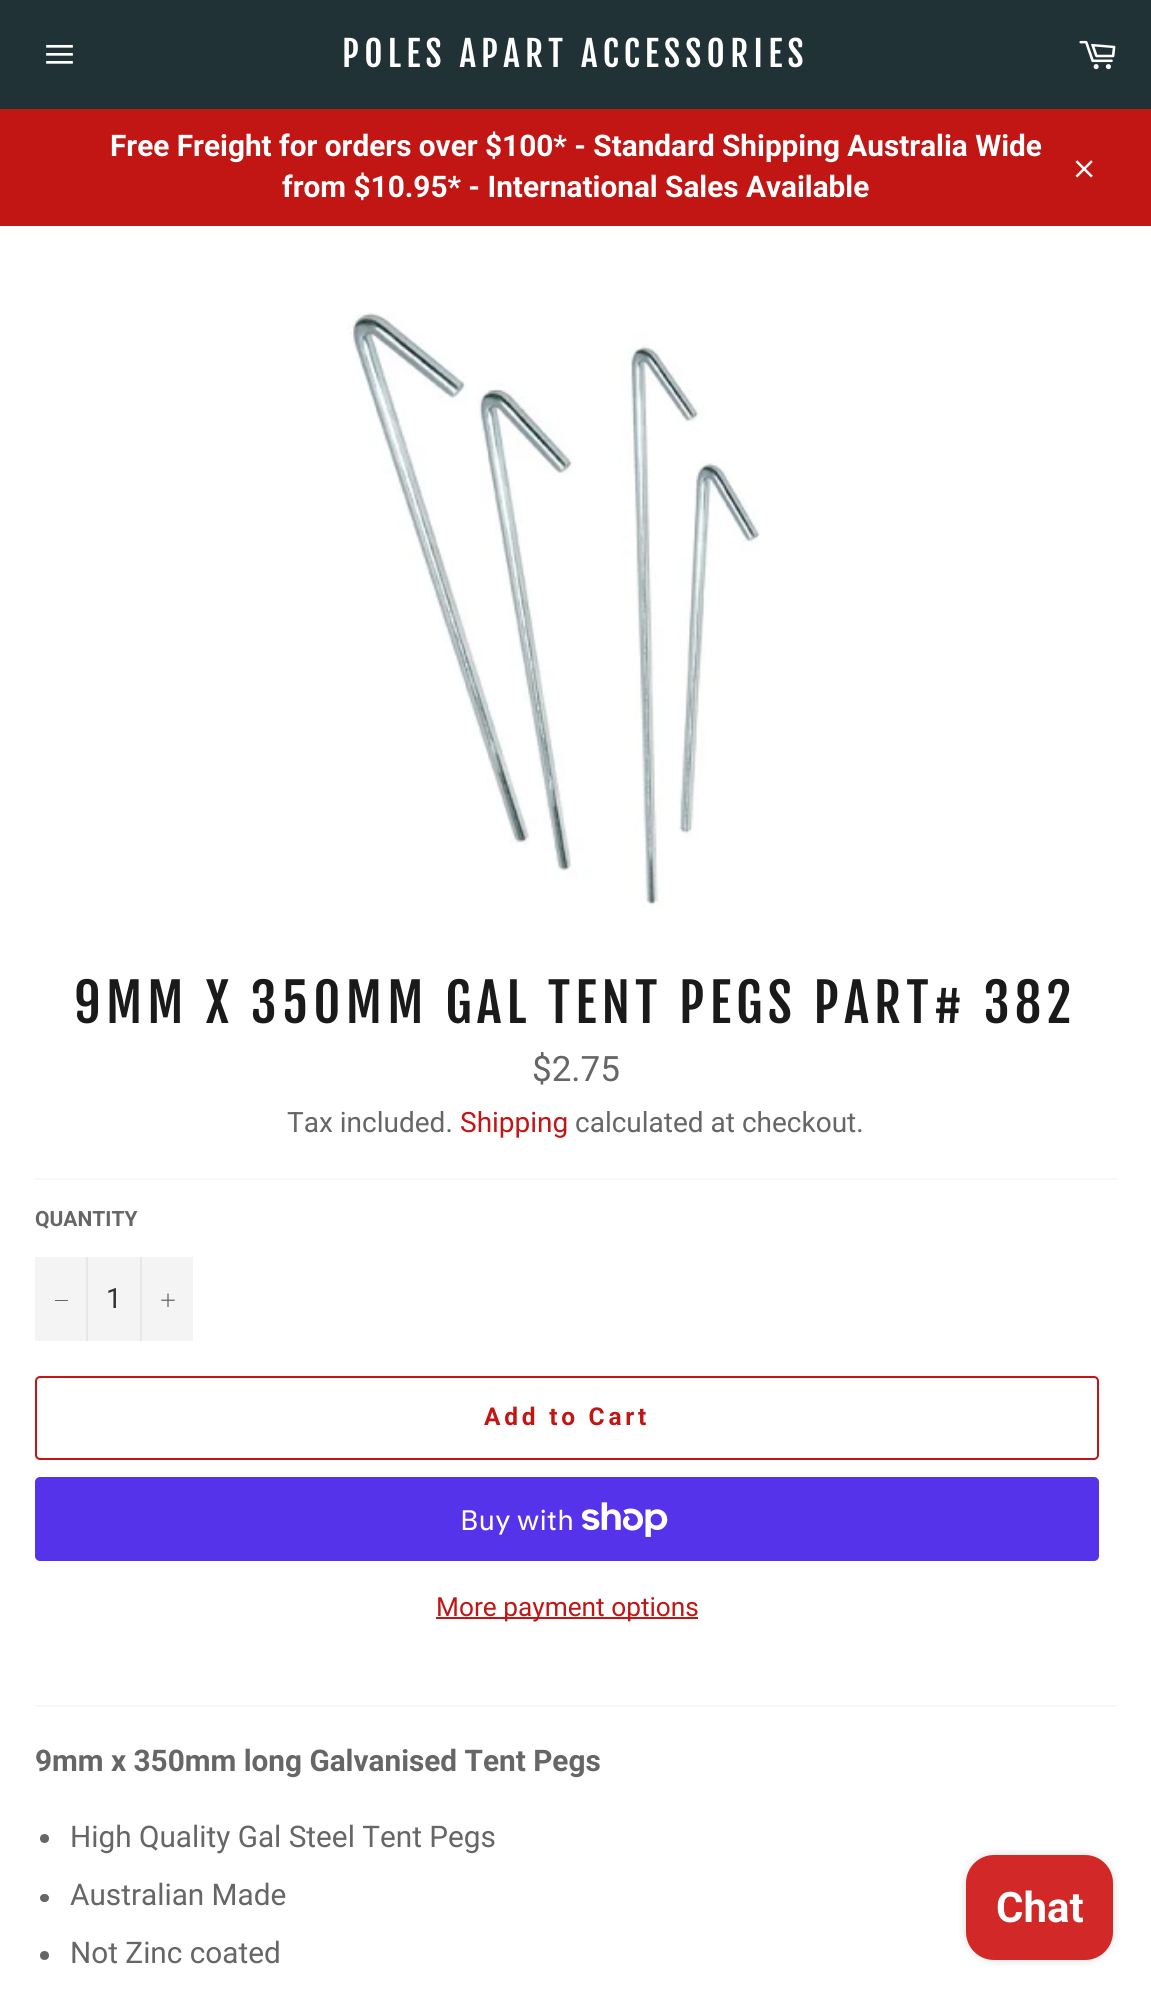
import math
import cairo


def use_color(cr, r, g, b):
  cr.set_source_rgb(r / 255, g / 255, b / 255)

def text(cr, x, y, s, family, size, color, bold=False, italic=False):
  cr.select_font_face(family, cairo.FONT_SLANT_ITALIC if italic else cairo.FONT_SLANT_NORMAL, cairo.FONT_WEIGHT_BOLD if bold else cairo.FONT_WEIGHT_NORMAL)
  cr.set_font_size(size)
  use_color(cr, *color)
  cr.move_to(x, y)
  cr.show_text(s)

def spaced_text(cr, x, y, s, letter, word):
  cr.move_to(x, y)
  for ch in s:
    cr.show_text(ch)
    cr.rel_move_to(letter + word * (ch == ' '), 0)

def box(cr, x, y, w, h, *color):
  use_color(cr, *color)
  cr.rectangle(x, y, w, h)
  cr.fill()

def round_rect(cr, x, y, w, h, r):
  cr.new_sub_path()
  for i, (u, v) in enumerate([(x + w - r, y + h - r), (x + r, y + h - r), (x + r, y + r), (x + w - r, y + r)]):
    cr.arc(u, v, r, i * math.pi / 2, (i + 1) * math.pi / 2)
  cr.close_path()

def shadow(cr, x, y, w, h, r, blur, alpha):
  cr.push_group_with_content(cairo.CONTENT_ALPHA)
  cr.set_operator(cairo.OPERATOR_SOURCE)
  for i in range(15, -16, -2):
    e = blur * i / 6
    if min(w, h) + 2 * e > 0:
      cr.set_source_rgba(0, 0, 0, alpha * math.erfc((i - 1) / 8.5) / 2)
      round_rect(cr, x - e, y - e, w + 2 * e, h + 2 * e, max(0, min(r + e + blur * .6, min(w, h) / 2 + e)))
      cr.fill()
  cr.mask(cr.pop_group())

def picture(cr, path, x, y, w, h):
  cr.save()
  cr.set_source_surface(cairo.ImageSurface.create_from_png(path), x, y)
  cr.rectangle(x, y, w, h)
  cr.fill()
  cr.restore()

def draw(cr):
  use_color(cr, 33, 50, 54)
  cr.paint()
  picture(cr, "img_01.png", 46, 44, 27, 20)
  picture(cr, "img_02.png", 1079, 40, 37, 30)
  box(cr, 0, 109, 1151, 117, 194, 22, 21)
  picture(cr, "img_03.png", 1075, 160, 18, 18)
  box(cr, 0, 226, 1151, 1770, 255, 255, 255)
  picture(cr, "img_04.png", 348, 312, 412, 596)
  box(cr, 35, 1178, 1082, 2, 247, 247, 247)
  box(cr, 35, 1257, 158, 84, 244, 244, 244)
  box(cr, 86, 1257, 2, 84, 231, 231, 231)
  box(cr, 55, 1300, 13, 1, 102, 102, 102)
  box(cr, 140, 1257, 2, 84, 231, 231, 231)
  picture(cr, "img_05.png", 161, 1293, 14, 14)
  round_rect(cr, 36, 1377, 1062, 82, 4)
  use_color(cr, 194, 22, 21)
  cr.stroke()
  use_color(cr, 84, 51, 235)
  round_rect(cr, 35, 1477, 1064, 84, 5)
  cr.fill()
  picture(cr, "img_06.png", 582, 1502, 86, 35)
  box(cr, 436, 1617, 262, 2, 194, 22, 21)
  box(cr, 35, 1705, 1082, 2, 247, 247, 247)
  use_color(cr, 102, 102, 102)
  cr.arc(44.5, 1838.5, 4.5, 0, 2 * math.pi)
  cr.fill()
  round_rect(cr, 40, 1894, 9, 8, 4)
  cr.fill()
  cr.arc(44.5, 1955.5, 4.5, 0, 2 * math.pi)
  cr.fill()
  use_color(cr, 0, 0, 0)
  shadow(cr, 966, 1855, 147, 105, 28, 4.5, 0.15)
  use_color(cr, 211, 40, 40)
  round_rect(cr, 966, 1855, 147, 105, 28)
  cr.fill()
  cr.select_font_face("Fjalla One")
  cr.set_font_size(35)
  use_color(cr, 255, 255, 255)
  spaced_text(cr, 342, 67, "POLES APART ACCESSORIES", 5.25, 0)
  text(cr, 110, 156, "Free Freight for orders over $100* - Standard Shipping Australia Wide", "Roboto", 29.75, (255, 255, 255), bold=True)
  text(cr, 282, 197, "from $10.95* - International Sales Available", "Roboto", 29.75, (255, 255, 255), bold=True)
  cr.select_font_face("Fjalla One")
  cr.set_font_size(52.5)
  use_color(cr, 26, 26, 26)
  spaced_text(cr, 74, 1023, "9MM X 350MM GAL TENT PEGS PART# 382", 5.25, 0)
  text(cr, 532, 1081, "$2.75", "Roboto", 35, (102, 102, 102))
  text(cr, 287, 1132, "Tax included.", "Roboto", 28, (102, 102, 102))
  text(cr, 460, 1132, "Shipping", "Roboto", 28, (194, 22, 21))
  text(cr, 575, 1132, "calculated at checkout.", "Roboto", 28, (102, 102, 102))
  text(cr, 35, 1226, "QUANTITY", "Roboto", 21, (102, 102, 102), bold=True)
  text(cr, 106, 1308, "1", "Roboto", 28, (51, 51, 51))
  cr.select_font_face("Roboto", cairo.FONT_SLANT_NORMAL, cairo.FONT_WEIGHT_BOLD)
  cr.set_font_size(24.5)
  use_color(cr, 194, 22, 21)
  spaced_text(cr, 484, 1425, "Add to Cart", 3.75, 0)
  text(cr, 460, 1530, "Buy with", "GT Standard", 28, (255, 255, 255))
  text(cr, 436, 1616, "More payment options", "Roboto", 26.25, (194, 22, 21))
  text(cr, 35, 1771, "9mm x 350mm long Galvanised Tent Pegs", "Roboto", 29.75, (102, 102, 102), bold=True)
  text(cr, 70, 1847, "High Quality Gal Steel Tent Pegs", "Roboto", 29.75, (102, 102, 102))
  text(cr, 70, 1905, "Australian Made", "Roboto", 29.75, (102, 102, 102))
  text(cr, 70, 1963, "Not Zinc coated", "Roboto", 29.75, (102, 102, 102))
  text(cr, 996, 1922, "Chat", "Roboto", 42, (255, 255, 255), bold=True)


surface = cairo.ImageSurface(cairo.FORMAT_RGB24, 1151, 1996)
cr = cairo.Context(surface)
options = cairo.FontOptions()
options.set_hint_metrics(cairo.HINT_METRICS_OFF)
options.set_hint_style(cairo.HINT_STYLE_NONE)
cr.set_font_options(options)
cr.set_miter_limit(4)
draw(cr)
surface.write_to_png("out.png")
